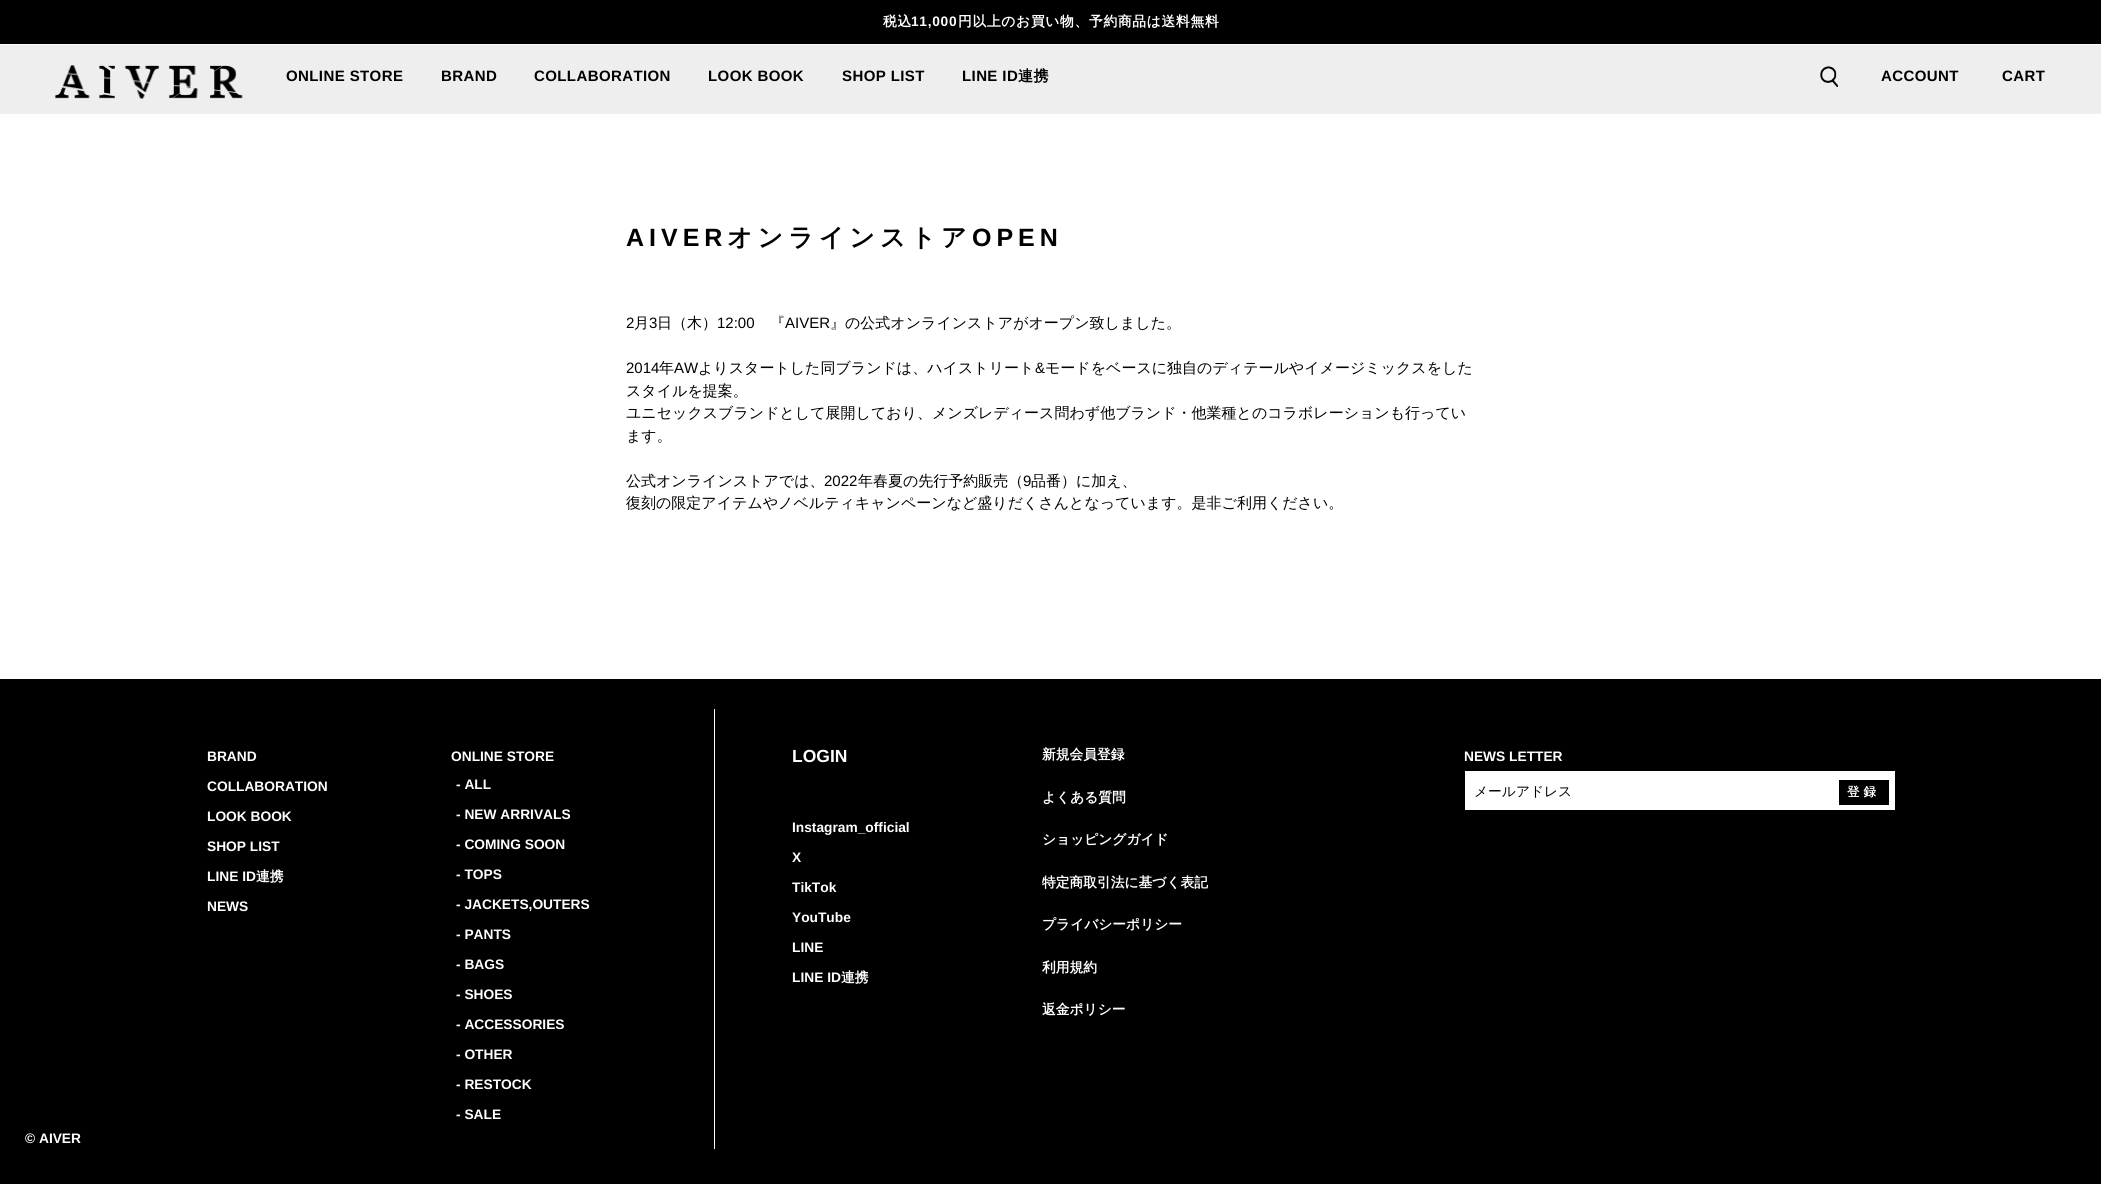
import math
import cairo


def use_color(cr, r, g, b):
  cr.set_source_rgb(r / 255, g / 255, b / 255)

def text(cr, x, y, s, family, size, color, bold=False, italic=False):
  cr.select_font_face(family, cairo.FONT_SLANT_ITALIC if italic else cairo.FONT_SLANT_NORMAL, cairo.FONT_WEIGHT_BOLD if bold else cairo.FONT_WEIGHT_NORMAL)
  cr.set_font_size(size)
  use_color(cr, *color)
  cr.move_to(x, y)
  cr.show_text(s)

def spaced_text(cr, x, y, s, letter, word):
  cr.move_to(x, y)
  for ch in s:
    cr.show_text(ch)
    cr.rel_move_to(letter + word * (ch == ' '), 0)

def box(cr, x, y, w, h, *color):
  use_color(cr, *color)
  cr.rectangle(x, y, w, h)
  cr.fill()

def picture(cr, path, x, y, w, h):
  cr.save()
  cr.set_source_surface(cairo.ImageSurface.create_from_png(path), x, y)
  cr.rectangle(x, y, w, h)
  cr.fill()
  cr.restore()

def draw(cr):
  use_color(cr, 255, 255, 255)
  cr.paint()
  box(cr, 0, 0, 2101, 44, 0, 0, 0)
  box(cr, 0, 45, 2101, 69, 238, 238, 238)
  picture(cr, "img_01.png", 55, 65, 188, 34)
  picture(cr, "img_02.png", 1820, 66, 18, 21)
  box(cr, 0, 679, 2101, 505, 0, 0, 0)
  box(cr, 714, 709, 1, 440, 255, 255, 255)
  box(cr, 1465, 771, 430, 39, 255, 255, 255)
  box(cr, 1839, 780, 50, 25, 0, 0, 0)
  cr.select_font_face("WenQuanYi Zen Hei", cairo.FONT_SLANT_NORMAL, cairo.FONT_WEIGHT_BOLD)
  cr.set_font_size(13.75)
  use_color(cr, 255, 255, 255)
  spaced_text(cr, 883, 26, "税込", 0.7, 0)
  cr.select_font_face("Liberation Sans", cairo.FONT_SLANT_NORMAL, cairo.FONT_WEIGHT_BOLD)
  spaced_text(cr, 911, 26, "11,000", 0.7, 0)
  cr.select_font_face("WenQuanYi Zen Hei", cairo.FONT_SLANT_NORMAL, cairo.FONT_WEIGHT_BOLD)
  spaced_text(cr, 958, 26, "円以上のお買い物、予約商品は送料無料", 0.7, 0)
  cr.select_font_face("Arimo", cairo.FONT_SLANT_NORMAL, cairo.FONT_WEIGHT_BOLD)
  cr.set_font_size(15)
  use_color(cr, 0, 0, 0)
  spaced_text(cr, 286, 81, "ONLINE STORE", 0.4, 0)
  spaced_text(cr, 441, 81, "BRAND", 0.4, 0)
  spaced_text(cr, 534, 81, "COLLABORATION", 0.4, 0)
  spaced_text(cr, 708, 81, "LOOK BOOK", 0.4, 0)
  spaced_text(cr, 842, 81, "SHOP LIST", 0.4, 0)
  spaced_text(cr, 962, 81, "LINE ID", 0.4, 0)
  cr.select_font_face("WenQuanYi Zen Hei", cairo.FONT_SLANT_NORMAL, cairo.FONT_WEIGHT_BOLD)
  spaced_text(cr, 1018, 81, "連携", 0.4, 0)
  cr.select_font_face("Arimo", cairo.FONT_SLANT_NORMAL, cairo.FONT_WEIGHT_BOLD)
  spaced_text(cr, 1881, 81, "ACCOUNT", 0.4, 0)
  spaced_text(cr, 2002, 81, "CART", 0.4, 0)
  cr.set_font_size(25)
  spaced_text(cr, 626, 246, "AIVER", 5, 0)
  cr.select_font_face("WenQuanYi Zen Hei", cairo.FONT_SLANT_NORMAL, cairo.FONT_WEIGHT_BOLD)
  spaced_text(cr, 727, 246, "オンラインストア", 5, 0)
  cr.select_font_face("Arimo", cairo.FONT_SLANT_NORMAL, cairo.FONT_WEIGHT_BOLD)
  spaced_text(cr, 972, 246, "OPEN", 5, 0)
  text(cr, 626, 328, "2", "Liberation Sans", 15, (0, 0, 0))
  text(cr, 634, 328, "月", "WenQuanYi Zen Hei Medium", 15, (0, 0, 0))
  text(cr, 649, 328, "3", "Liberation Sans", 15, (0, 0, 0))
  text(cr, 657, 328, "日（木）", "WenQuanYi Zen Hei Medium", 15, (0, 0, 0))
  text(cr, 717, 328, "12:00", "Liberation Sans", 15, (0, 0, 0))
  text(cr, 770, 328, "『", "WenQuanYi Zen Hei Medium", 15, (0, 0, 0))
  text(cr, 785, 328, "AIVER", "Liberation Sans", 15, (0, 0, 0))
  text(cr, 830, 328, "』の公式オンラインストアがオープン致しました。", "WenQuanYi Zen Hei Medium", 15, (0, 0, 0))
  text(cr, 626, 373, "2014", "Liberation Sans", 15, (0, 0, 0))
  text(cr, 659, 373, "年", "WenQuanYi Zen Hei Medium", 15, (0, 0, 0))
  text(cr, 674, 373, "AW", "Liberation Sans", 15, (0, 0, 0))
  text(cr, 698, 373, "よりスタートした同ブランドは、ハイストリート", "WenQuanYi Zen Hei Medium", 15, (0, 0, 0))
  text(cr, 1035, 373, "&", "Liberation Sans", 15, (0, 0, 0))
  text(cr, 1045, 373, "モードをベースに独自のディテールやイメージミックスをした", "WenQuanYi Zen Hei Medium", 15, (0, 0, 0))
  text(cr, 626, 396, "スタイルを提案。", "WenQuanYi Zen Hei Medium", 15, (0, 0, 0))
  text(cr, 626, 418, "ユニセックスブランドとして展開しており、メンズレディース問わず他ブランド・他業種とのコラボレーションも行ってい", "WenQuanYi Zen Hei Medium", 15, (0, 0, 0))
  text(cr, 626, 441, "ます。", "WenQuanYi Zen Hei Medium", 15, (0, 0, 0))
  text(cr, 626, 486, "公式オンラインストアでは、", "WenQuanYi Zen Hei Medium", 15, (0, 0, 0))
  text(cr, 824, 486, "2022", "Liberation Sans", 15, (0, 0, 0))
  text(cr, 858, 486, "年春夏の先行予約販売（", "WenQuanYi Zen Hei Medium", 15, (0, 0, 0))
  text(cr, 1023, 486, "9", "Liberation Sans", 15, (0, 0, 0))
  text(cr, 1031, 486, "品番）に加え、", "WenQuanYi Zen Hei Medium", 15, (0, 0, 0))
  text(cr, 626, 508, "復刻の限定アイテムやノベルティキャンペーンなど盛りだくさんとなっています。是非ご利用ください。", "WenQuanYi Zen Hei Medium", 15, (0, 0, 0))
  text(cr, 207, 761, "BRAND", "Arimo", 13.75, (255, 255, 255), bold=True)
  text(cr, 207, 791, "COLLABORATION", "Arimo", 13.75, (255, 255, 255), bold=True)
  text(cr, 207, 821, "LOOK BOOK", "Arimo", 13.75, (255, 255, 255), bold=True)
  text(cr, 207, 851, "SHOP LIST", "Arimo", 13.75, (255, 255, 255), bold=True)
  text(cr, 207, 881, "LINE ID", "Arimo", 13.75, (255, 255, 255), bold=True)
  text(cr, 256, 881, "連携", "WenQuanYi Zen Hei", 13.75, (255, 255, 255), bold=True)
  text(cr, 207, 911, "NEWS", "Arimo", 13.75, (255, 255, 255), bold=True)
  text(cr, 451, 761, "ONLINE STORE", "Arimo", 13.75, (255, 255, 255), bold=True)
  text(cr, 456, 789, "- ALL", "Arimo", 13.75, (255, 255, 255), bold=True)
  text(cr, 456, 819, "- NEW ARRIVALS", "Arimo", 13.75, (255, 255, 255), bold=True)
  text(cr, 456, 849, "- COMING SOON", "Arimo", 13.75, (255, 255, 255), bold=True)
  text(cr, 456, 879, "- TOPS", "Arimo", 13.75, (255, 255, 255), bold=True)
  text(cr, 456, 909, "- JACKETS,OUTERS", "Arimo", 13.75, (255, 255, 255), bold=True)
  text(cr, 456, 939, "- PANTS", "Arimo", 13.75, (255, 255, 255), bold=True)
  text(cr, 456, 969, "- BAGS", "Arimo", 13.75, (255, 255, 255), bold=True)
  text(cr, 456, 999, "- SHOES", "Arimo", 13.75, (255, 255, 255), bold=True)
  text(cr, 456, 1029, "- ACCESSORIES", "Arimo", 13.75, (255, 255, 255), bold=True)
  text(cr, 456, 1059, "- OTHER", "Arimo", 13.75, (255, 255, 255), bold=True)
  text(cr, 456, 1089, "- RESTOCK", "Arimo", 13.75, (255, 255, 255), bold=True)
  text(cr, 456, 1119, "- SALE", "Arimo", 13.75, (255, 255, 255), bold=True)
  text(cr, 792, 762, "LOGIN", "Arimo", 17.5, (255, 255, 255), bold=True)
  text(cr, 792, 832, "Instagram_official", "Arimo", 13.75, (255, 255, 255), bold=True)
  text(cr, 792, 862, "X", "Arimo", 13.75, (255, 255, 255), bold=True)
  text(cr, 792, 892, "TikTok", "Arimo", 13.75, (255, 255, 255), bold=True)
  text(cr, 792, 922, "YouTube", "Arimo", 13.75, (255, 255, 255), bold=True)
  text(cr, 792, 952, "LINE", "Arimo", 13.75, (255, 255, 255), bold=True)
  text(cr, 792, 982, "LINE ID", "Arimo", 13.75, (255, 255, 255), bold=True)
  text(cr, 841, 982, "連携", "WenQuanYi Zen Hei", 13.75, (255, 255, 255), bold=True)
  text(cr, 1042, 759, "新規会員登録", "WenQuanYi Zen Hei", 13.75, (255, 255, 255), bold=True)
  text(cr, 1042, 802, "よくある質問", "WenQuanYi Zen Hei", 13.75, (255, 255, 255), bold=True)
  text(cr, 1042, 844, "ショッピングガイド", "WenQuanYi Zen Hei", 13.75, (255, 255, 255), bold=True)
  text(cr, 1042, 887, "特定商取引法に基づく表記", "WenQuanYi Zen Hei", 13.75, (255, 255, 255), bold=True)
  text(cr, 1042, 929, "プライバシーポリシー", "WenQuanYi Zen Hei", 13.75, (255, 255, 255), bold=True)
  text(cr, 1042, 972, "利用規約", "WenQuanYi Zen Hei", 13.75, (255, 255, 255), bold=True)
  text(cr, 1042, 1014, "返金ポリシー", "WenQuanYi Zen Hei", 13.75, (255, 255, 255), bold=True)
  text(cr, 1464, 761, "NEWS LETTER", "Arimo", 13.75, (255, 255, 255), bold=True)
  text(cr, 1474, 796, "メールアドレス", "WenQuanYi Zen Hei Medium", 13.75, (0, 0, 0))
  cr.select_font_face("WenQuanYi Zen Hei", cairo.FONT_SLANT_NORMAL, cairo.FONT_WEIGHT_BOLD)
  cr.set_font_size(12.5)
  use_color(cr, 255, 255, 255)
  spaced_text(cr, 1847, 796, "登録", 4, 0)
  text(cr, 25, 1143, "© AIVER", "Arimo", 13.75, (255, 255, 255), bold=True)


surface = cairo.ImageSurface(cairo.FORMAT_RGB24, 2101, 1187)
cr = cairo.Context(surface)
options = cairo.FontOptions()
options.set_hint_metrics(cairo.HINT_METRICS_OFF)
options.set_hint_style(cairo.HINT_STYLE_NONE)
cr.set_font_options(options)
cr.set_miter_limit(4)
draw(cr)
surface.write_to_png("out.png")
